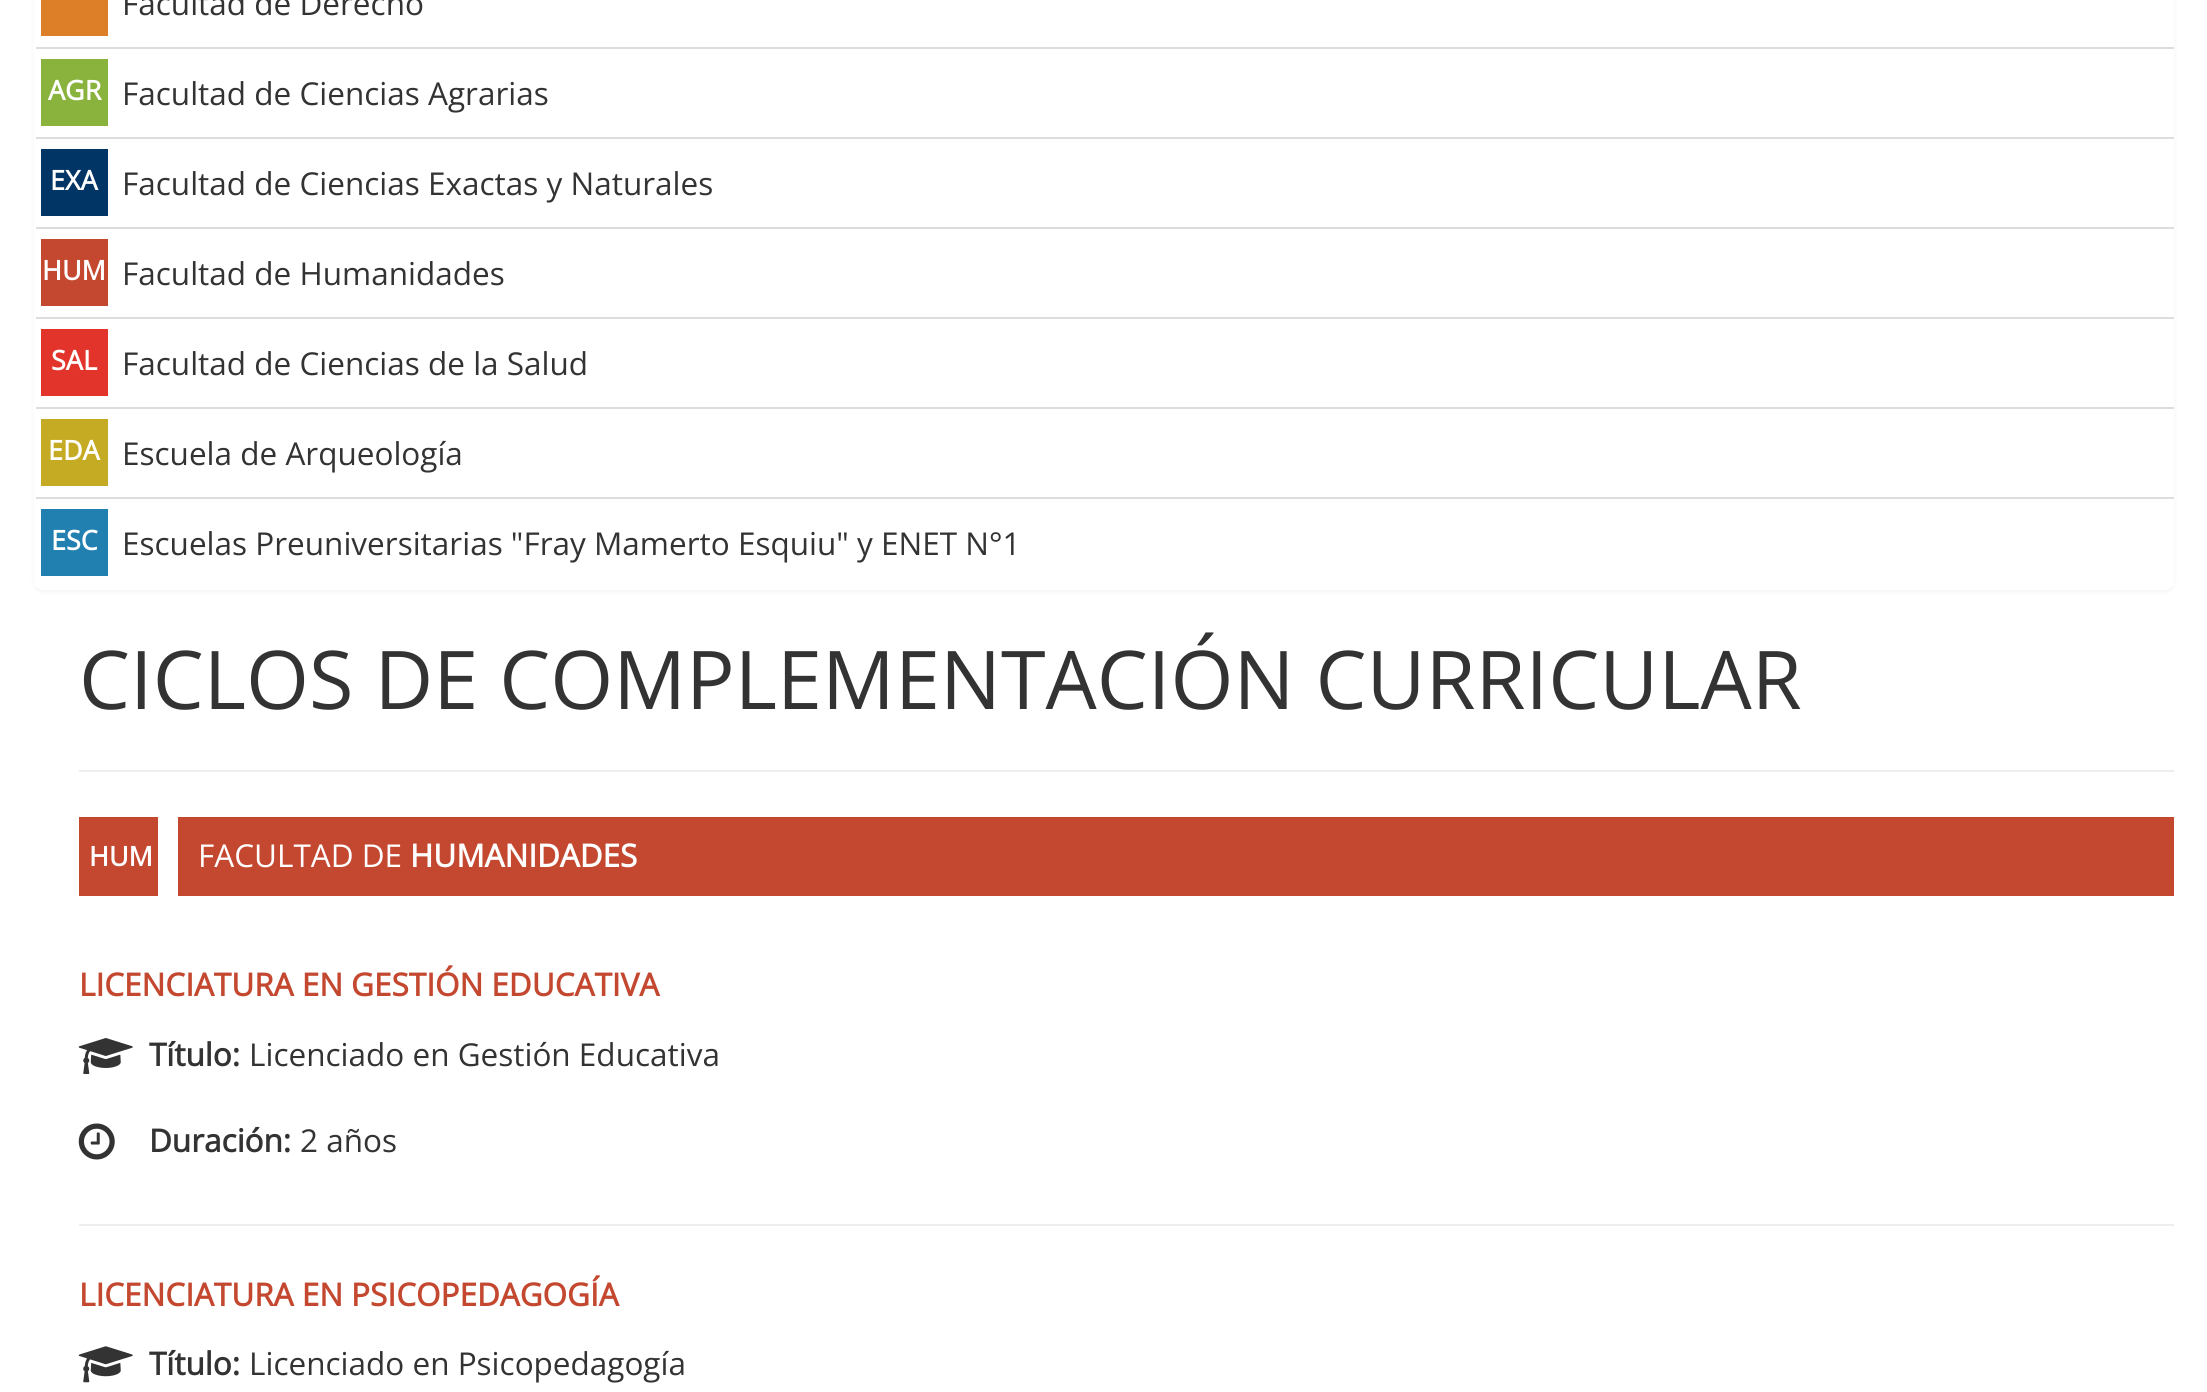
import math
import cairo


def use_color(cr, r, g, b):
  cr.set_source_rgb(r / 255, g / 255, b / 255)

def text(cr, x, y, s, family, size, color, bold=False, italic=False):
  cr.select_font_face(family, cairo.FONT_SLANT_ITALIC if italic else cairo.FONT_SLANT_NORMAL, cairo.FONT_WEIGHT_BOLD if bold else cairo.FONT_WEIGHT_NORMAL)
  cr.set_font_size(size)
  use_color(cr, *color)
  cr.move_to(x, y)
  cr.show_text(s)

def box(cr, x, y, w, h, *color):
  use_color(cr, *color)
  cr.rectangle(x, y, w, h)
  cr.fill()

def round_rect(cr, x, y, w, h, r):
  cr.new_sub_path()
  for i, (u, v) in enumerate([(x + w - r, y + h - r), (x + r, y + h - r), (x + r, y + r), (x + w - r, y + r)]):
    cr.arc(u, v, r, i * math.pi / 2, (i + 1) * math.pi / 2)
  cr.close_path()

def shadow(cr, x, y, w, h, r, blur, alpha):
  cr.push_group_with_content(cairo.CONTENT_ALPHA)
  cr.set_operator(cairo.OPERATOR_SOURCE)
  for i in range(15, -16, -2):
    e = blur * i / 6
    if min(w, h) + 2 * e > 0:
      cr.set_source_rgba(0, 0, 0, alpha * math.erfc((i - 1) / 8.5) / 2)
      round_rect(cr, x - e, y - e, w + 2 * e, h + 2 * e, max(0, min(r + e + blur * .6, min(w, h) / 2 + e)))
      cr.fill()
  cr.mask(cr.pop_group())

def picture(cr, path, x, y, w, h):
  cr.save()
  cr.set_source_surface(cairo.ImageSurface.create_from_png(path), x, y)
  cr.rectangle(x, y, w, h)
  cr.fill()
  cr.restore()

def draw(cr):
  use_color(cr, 255, 255, 255)
  cr.paint()
  use_color(cr, 0, 0, 0)
  shadow(cr, 34, -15, 2140, 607, 9, 2, 0.05)
  use_color(cr, 255, 255, 255)
  round_rect(cr, 34, -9, 2140, 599, 9)
  cr.fill()
  box(cr, 41, 0, 67, 36, 221, 127, 40)
  box(cr, 41, 59, 67, 67, 138, 179, 61)
  box(cr, 36, 47, 2138, 2, 221, 221, 221)
  box(cr, 41, 149, 67, 67, 0, 53, 102)
  box(cr, 36, 137, 2138, 2, 221, 221, 221)
  box(cr, 41, 239, 67, 67, 196, 72, 48)
  box(cr, 36, 227, 2138, 2, 221, 221, 221)
  box(cr, 41, 329, 67, 67, 226, 52, 42)
  box(cr, 36, 317, 2138, 2, 221, 221, 221)
  box(cr, 41, 419, 67, 67, 197, 171, 35)
  box(cr, 36, 407, 2138, 2, 221, 221, 221)
  box(cr, 41, 509, 67, 67, 33, 128, 176)
  box(cr, 36, 497, 2138, 2, 221, 221, 221)
  box(cr, 79, 770, 2095, 2, 238, 238, 238)
  box(cr, 79, 817, 2095, 79, 196, 72, 48)
  box(cr, 158, 817, 20, 79, 255, 255, 255)
  picture(cr, "img_01.png", 78, 1038, 55, 36)
  picture(cr, "img_02.png", 78, 1123, 37, 37)
  box(cr, 79, 1224, 2095, 2, 238, 238, 238)
  picture(cr, "img_03.png", 78, 1346, 55, 37)
  text(cr, 122, 15, "Facultad de Derecho", "Open Sans", 31.5, (51, 51, 51))
  text(cr, 48, 100, "AGR", "Open Sans", 27, (255, 255, 255), bold=True)
  text(cr, 122, 105, "Facultad de Ciencias Agrarias", "Open Sans", 31.5, (51, 51, 51))
  text(cr, 50, 190, "EXA", "Open Sans", 27, (255, 255, 255), bold=True)
  text(cr, 122, 195, "Facultad de Ciencias Exactas y Naturales", "Open Sans", 31.5, (51, 51, 51))
  text(cr, 42, 280, "HUM", "Open Sans", 27, (255, 255, 255), bold=True)
  text(cr, 122, 285, "Facultad de Humanidades", "Open Sans", 31.5, (51, 51, 51))
  text(cr, 51, 370, "SAL", "Open Sans", 27, (255, 255, 255), bold=True)
  text(cr, 122, 375, "Facultad de Ciencias de la Salud", "Open Sans", 31.5, (51, 51, 51))
  text(cr, 48, 460, "EDA", "Open Sans", 27, (255, 255, 255), bold=True)
  text(cr, 122, 465, "Escuela de Arqueología", "Open Sans", 31.5, (51, 51, 51))
  text(cr, 51, 550, "ESC", "Open Sans", 27, (255, 255, 255), bold=True)
  text(cr, 122, 555, "Escuelas Preuniversitarias \"Fray Mamerto Esquiu\" y ENET N°1", "Open Sans", 31.5, (51, 51, 51))
  text(cr, 79, 709, "CICLOS DE COMPLEMENTACIÓN CURRICULAR", "Open Sans", 81, (51, 51, 51))
  text(cr, 89, 866, "HUM", "Open Sans", 27, (255, 255, 255), bold=True)
  text(cr, 198, 867, "FACULTAD DE", "Open Sans", 31.5, (255, 255, 255))
  text(cr, 410, 867, "HUMANIDADES", "Open Sans", 31.5, (255, 255, 255), bold=True)
  text(cr, 79, 996, "LICENCIATURA EN GESTIÓN EDUCATIVA", "Open Sans", 31.5, (196, 72, 48), bold=True)
  text(cr, 149, 1066, "Título:", "Open Sans", 31.5, (51, 51, 51), bold=True)
  text(cr, 249, 1066, "Licenciado en Gestión Educativa", "Open Sans", 31.5, (51, 51, 51))
  text(cr, 149, 1152, "Duración:", "Open Sans", 31.5, (51, 51, 51), bold=True)
  text(cr, 300, 1152, "2 años", "Open Sans", 31.5, (51, 51, 51))
  text(cr, 79, 1306, "LICENCIATURA EN PSICOPEDAGOGÍA", "Open Sans", 31.5, (196, 72, 48), bold=True)
  text(cr, 149, 1375, "Título:", "Open Sans", 31.5, (51, 51, 51), bold=True)
  text(cr, 249, 1375, "Licenciado en Psicopedagogía", "Open Sans", 31.5, (51, 51, 51))


surface = cairo.ImageSurface(cairo.FORMAT_RGB24, 2207, 1392)
cr = cairo.Context(surface)
options = cairo.FontOptions()
options.set_hint_metrics(cairo.HINT_METRICS_OFF)
options.set_hint_style(cairo.HINT_STYLE_NONE)
cr.set_font_options(options)
cr.set_miter_limit(4)
draw(cr)
surface.write_to_png("out.png")
